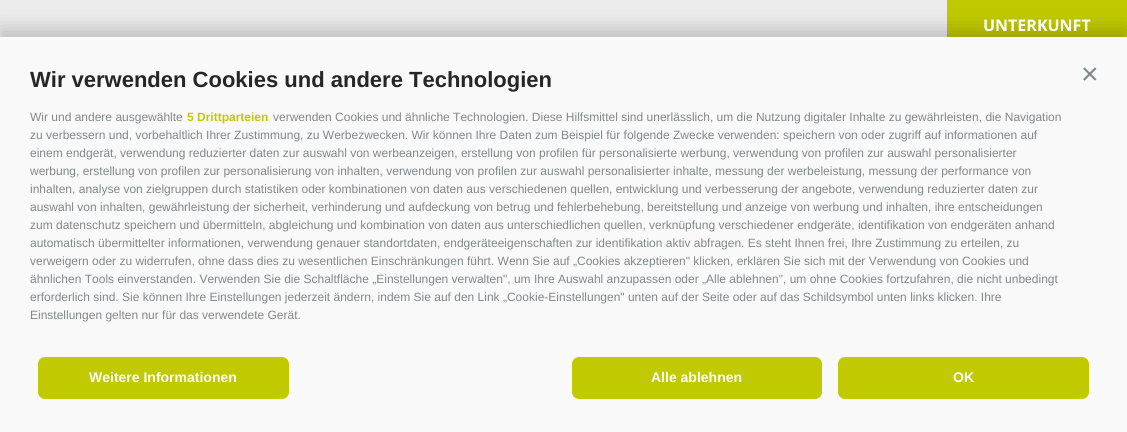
import math
import cairo


def use_color(cr, r, g, b):
  cr.set_source_rgb(r / 255, g / 255, b / 255)

def text(cr, x, y, s, family, size, color, bold=False, italic=False):
  cr.select_font_face(family, cairo.FONT_SLANT_ITALIC if italic else cairo.FONT_SLANT_NORMAL, cairo.FONT_WEIGHT_BOLD if bold else cairo.FONT_WEIGHT_NORMAL)
  cr.set_font_size(size)
  use_color(cr, *color)
  cr.move_to(x, y)
  cr.show_text(s)

def box(cr, x, y, w, h, *color):
  use_color(cr, *color)
  cr.rectangle(x, y, w, h)
  cr.fill()

def round_rect(cr, x, y, w, h, r):
  cr.new_sub_path()
  for i, (u, v) in enumerate([(x + w - r, y + h - r), (x + r, y + h - r), (x + r, y + r), (x + w - r, y + r)]):
    cr.arc(u, v, r, i * math.pi / 2, (i + 1) * math.pi / 2)
  cr.close_path()

def shadow(cr, x, y, w, h, r, blur, alpha):
  cr.push_group_with_content(cairo.CONTENT_ALPHA)
  cr.set_operator(cairo.OPERATOR_SOURCE)
  for i in range(15, -16, -2):
    e = blur * i / 6
    if min(w, h) + 2 * e > 0:
      cr.set_source_rgba(0, 0, 0, alpha * math.erfc((i - 1) / 8.5) / 2)
      round_rect(cr, x - e, y - e, w + 2 * e, h + 2 * e, max(0, min(r + e + blur * .6, min(w, h) / 2 + e)))
      cr.fill()
  cr.mask(cr.pop_group())

def draw(cr):
  use_color(cr, 236, 236, 236)
  cr.paint()
  box(cr, 947, 0, 180, 37, 193, 202, 0)
  use_color(cr, 0, 0, 0)
  shadow(cr, 0, 29, 1127, 395, 0, 10, 0.2)
  box(cr, 0, 37, 1127, 395, 249, 249, 249)
  use_color(cr, 193, 202, 0)
  round_rect(cr, 38, 357, 251, 42, 7)
  cr.fill()
  round_rect(cr, 572, 357, 250, 42, 7)
  cr.fill()
  round_rect(cr, 838, 357, 251, 42, 7)
  cr.fill()
  text(cr, 983, 31, "UNTERKUNFT", "Open Sans", 16, (255, 255, 255), bold=True)
  text(cr, 30, 87, "Wir verwenden Cookies und andere Technologien", "Liberation Sans", 22, (38, 38, 40), bold=True)
  text(cr, 1081, 84, "×", "Liberation Sans", 30, (128, 136, 140))
  text(cr, 30, 121, "Wir und andere ausgewählte", "Liberation Sans", 12, (128, 136, 140))
  text(cr, 187, 121, "5 Drittparteien", "Liberation Sans", 12, (193, 202, 0), bold=True)
  text(cr, 273, 121, "verwenden Cookies und ähnliche Technologien. Diese Hilfsmittel sind unerlässlich, um die Nutzung digitaler Inhalte zu gewährleisten, die Navigation", "Liberation Sans", 12, (128, 136, 140))
  text(cr, 30, 139, "zu verbessern und, vorbehaltlich Ihrer Zustimmung, zu Werbezwecken. Wir können Ihre Daten zum Beispiel für folgende Zwecke verwenden: speichern von oder zugriff auf informationen auf", "Liberation Sans", 12, (128, 136, 140))
  text(cr, 30, 157, "einem endgerät, verwendung reduzierter daten zur auswahl von werbeanzeigen, erstellung von profilen für personalisierte werbung, verwendung von profilen zur auswahl personalisierter", "Liberation Sans", 12, (128, 136, 140))
  text(cr, 30, 175, "werbung, erstellung von profilen zur personalisierung von inhalten, verwendung von profilen zur auswahl personalisierter inhalte, messung der werbeleistung, messung der performance von", "Liberation Sans", 12, (128, 136, 140))
  text(cr, 30, 193, "inhalten, analyse von zielgruppen durch statistiken oder kombinationen von daten aus verschiedenen quellen, entwicklung und verbesserung der angebote, verwendung reduzierter daten zur", "Liberation Sans", 12, (128, 136, 140))
  text(cr, 30, 211, "auswahl von inhalten, gewährleistung der sicherheit, verhinderung und aufdeckung von betrug und fehlerbehebung, bereitstellung und anzeige von werbung und inhalten, ihre entscheidungen", "Liberation Sans", 12, (128, 136, 140))
  text(cr, 30, 229, "zum datenschutz speichern und übermitteln, abgleichung und kombination von daten aus unterschiedlichen quellen, verknüpfung verschiedener endgeräte, identifikation von endgeräten anhand", "Liberation Sans", 12, (128, 136, 140))
  text(cr, 30, 247, "automatisch übermittelter informationen, verwendung genauer standortdaten, endgeräteeigenschaften zur identifikation aktiv abfragen. Es steht Ihnen frei, Ihre Zustimmung zu erteilen, zu", "Liberation Sans", 12, (128, 136, 140))
  text(cr, 30, 265, "verweigern oder zu widerrufen, ohne dass dies zu wesentlichen Einschränkungen führt. Wenn Sie auf „Cookies akzeptieren\" klicken, erklären Sie sich mit der Verwendung von Cookies und", "Liberation Sans", 12, (128, 136, 140))
  text(cr, 30, 283, "ähnlichen Tools einverstanden. Verwenden Sie die Schaltfläche „Einstellungen verwalten\", um Ihre Auswahl anzupassen oder „Alle ablehnen\", um ohne Cookies fortzufahren, die nicht unbedingt", "Liberation Sans", 12, (128, 136, 140))
  text(cr, 30, 301, "erforderlich sind. Sie können Ihre Einstellungen jederzeit ändern, indem Sie auf den Link „Cookie-Einstellungen\" unten auf der Seite oder auf das Schildsymbol unten links klicken. Ihre", "Liberation Sans", 12, (128, 136, 140))
  text(cr, 30, 319, "Einstellungen gelten nur für das verwendete Gerät.", "Liberation Sans", 12, (128, 136, 140))
  text(cr, 89, 382, "Weitere Informationen", "Liberation Sans", 14, (255, 255, 255), bold=True)
  text(cr, 651, 382, "Alle ablehnen", "Liberation Sans", 14, (255, 255, 255), bold=True)
  text(cr, 953, 382, "OK", "Liberation Sans", 14, (255, 255, 255), bold=True)


surface = cairo.ImageSurface(cairo.FORMAT_RGB24, 1127, 432)
cr = cairo.Context(surface)
options = cairo.FontOptions()
options.set_hint_metrics(cairo.HINT_METRICS_OFF)
options.set_hint_style(cairo.HINT_STYLE_NONE)
cr.set_font_options(options)
cr.set_miter_limit(4)
draw(cr)
surface.write_to_png("out.png")
